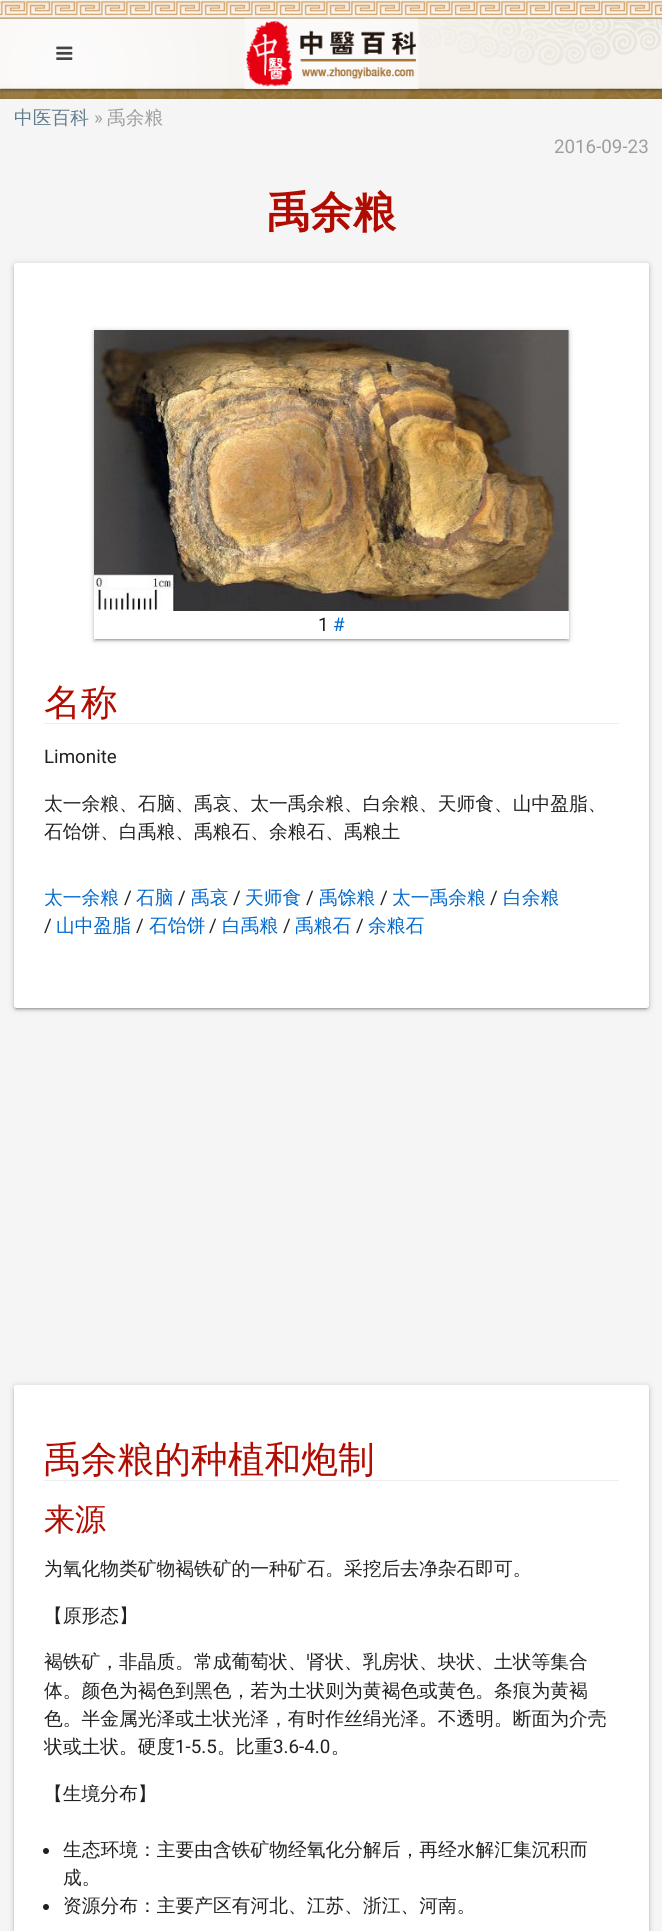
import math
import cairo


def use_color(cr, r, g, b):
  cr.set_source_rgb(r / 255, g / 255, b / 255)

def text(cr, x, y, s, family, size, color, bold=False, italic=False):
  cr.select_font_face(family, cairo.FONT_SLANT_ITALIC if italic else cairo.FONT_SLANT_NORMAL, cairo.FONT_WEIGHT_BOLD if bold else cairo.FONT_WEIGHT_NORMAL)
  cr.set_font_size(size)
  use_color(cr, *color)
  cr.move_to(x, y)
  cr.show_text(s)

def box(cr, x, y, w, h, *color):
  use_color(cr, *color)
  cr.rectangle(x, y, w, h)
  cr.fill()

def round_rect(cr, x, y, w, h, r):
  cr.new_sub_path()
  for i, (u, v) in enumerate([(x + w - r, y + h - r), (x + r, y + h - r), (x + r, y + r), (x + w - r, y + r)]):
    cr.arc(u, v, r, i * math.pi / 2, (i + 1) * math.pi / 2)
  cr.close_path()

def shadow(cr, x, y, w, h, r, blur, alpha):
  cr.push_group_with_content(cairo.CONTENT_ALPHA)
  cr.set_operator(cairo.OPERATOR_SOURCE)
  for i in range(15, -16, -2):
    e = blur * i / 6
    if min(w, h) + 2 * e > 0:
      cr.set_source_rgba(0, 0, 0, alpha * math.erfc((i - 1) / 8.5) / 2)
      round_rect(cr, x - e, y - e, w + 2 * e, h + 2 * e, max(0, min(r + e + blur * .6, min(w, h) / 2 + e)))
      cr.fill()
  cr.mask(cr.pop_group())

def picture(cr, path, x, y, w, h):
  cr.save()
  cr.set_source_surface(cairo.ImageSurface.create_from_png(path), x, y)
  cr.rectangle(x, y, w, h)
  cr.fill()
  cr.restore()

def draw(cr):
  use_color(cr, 255, 255, 255)
  cr.paint()
  picture(cr, "img_01.png", 0, 18, 662, 81)
  picture(cr, "img_02.png", 0, 0, 662, 19)
  use_color(cr, 0, 0, 0)
  shadow(cr, 0, 20, 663, 70, 0, 3, 0.2)
  shadow(cr, 3, 25, 657, 65, 0, 0.5, 0.12)
  shadow(cr, 0, 21, 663, 70, 0, 1, 0.14)
  picture(cr, "img_03.png", 0, 18, 662, 71)
  picture(cr, "img_04.png", 56, 46, 17, 14)
  shadow(cr, -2, 100, 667, 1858, 0, 9, 0.12)
  shadow(cr, -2, 106, 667, 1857, 0, 10.5, 0.14)
  picture(cr, "img_05.png", 244, 18, 175, 71)
  box(cr, 0, 99, 662, 1832, 245, 245, 245)
  use_color(cr, 0, 0, 0)
  shadow(cr, 14, 264, 635, 745, 2.5, 3, 0.2)
  shadow(cr, 16, 269, 630, 740, 0, 0.5, 0.12)
  shadow(cr, 14, 265, 635, 745, 2.5, 1, 0.14)
  use_color(cr, 255, 255, 255)
  round_rect(cr, 14, 263, 635, 745, 2.5)
  cr.fill()
  cr.save()
  cr.set_fill_rule(cairo.FILL_RULE_EVEN_ODD)
  cr.new_path()
  cr.move_to(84, 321)
  cr.line_to(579, 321)
  cr.line_to(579, 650)
  cr.line_to(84, 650)
  cr.close_path()
  cr.move_to(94, 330)
  cr.line_to(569, 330)
  cr.line_to(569, 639)
  cr.line_to(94, 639)
  cr.close_path()
  cr.clip()
  use_color(cr, 0, 0, 0)
  shadow(cr, 94, 331, 475, 309, 0, 3, 0.2)
  cr.restore()
  cr.save()
  cr.set_fill_rule(cairo.FILL_RULE_EVEN_ODD)
  cr.new_path()
  cr.move_to(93, 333)
  cr.line_to(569, 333)
  cr.line_to(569, 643)
  cr.line_to(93, 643)
  cr.close_path()
  cr.move_to(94, 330)
  cr.line_to(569, 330)
  cr.line_to(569, 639)
  cr.line_to(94, 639)
  cr.close_path()
  cr.clip()
  use_color(cr, 0, 0, 0)
  shadow(cr, 96, 336, 470, 304, 0, 0.5, 0.12)
  cr.restore()
  cr.save()
  cr.set_fill_rule(cairo.FILL_RULE_EVEN_ODD)
  cr.new_path()
  cr.move_to(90, 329)
  cr.line_to(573, 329)
  cr.line_to(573, 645)
  cr.line_to(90, 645)
  cr.close_path()
  cr.move_to(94, 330)
  cr.line_to(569, 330)
  cr.line_to(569, 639)
  cr.line_to(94, 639)
  cr.close_path()
  cr.clip()
  use_color(cr, 0, 0, 0)
  shadow(cr, 94, 333, 475, 308, 0, 1, 0.14)
  cr.restore()
  picture(cr, "img_06.png", 94, 330, 475, 281)
  box(cr, 44, 723, 575, 1, 238, 238, 238)
  use_color(cr, 0, 0, 0)
  shadow(cr, 14, 1386, 635, 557, 2.5, 3, 0.2)
  shadow(cr, 14, 1388, 635, 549, 2.5, 1, 0.14)
  use_color(cr, 255, 255, 255)
  round_rect(cr, 14, 1385, 635, 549, 2.5)
  cr.fill()
  box(cr, 44, 1480, 575, 1, 238, 238, 238)
  use_color(cr, 33, 33, 33)
  cr.arc(46, 1851, 3, 0, 2 * math.pi)
  cr.fill()
  cr.arc(46, 1907, 3, 0, 2 * math.pi)
  cr.fill()
  text(cr, 14, 124, "中医百科", "WenQuanYi Zen Hei Medium", 18.75, (96, 125, 139))
  text(cr, 94, 124, "»", "Roboto", 18.75, (158, 158, 158))
  text(cr, 107, 124, "禹余粮", "WenQuanYi Zen Hei Medium", 18.75, (158, 158, 158))
  text(cr, 554, 153, "2016-09-23", "Roboto", 18.75, (158, 158, 158))
  text(cr, 267, 227, "禹余粮", "WenQuanYi Zen Hei", 43, (177, 12, 1), bold=True)
  text(cr, 318, 631, "1", "Roboto", 18.75, (33, 33, 33))
  text(cr, 333, 631, "#", "Roboto", 18.75, (2, 104, 205))
  text(cr, 44, 715, "名称", "WenQuanYi Zen Hei Medium", 36.75, (177, 12, 1))
  text(cr, 44, 763, "Limonite", "Roboto", 18.75, (33, 33, 33))
  text(cr, 44, 810, "太一余粮、石脑、禹哀、太一禹余粮、白余粮、天师食、山中盈脂、", "WenQuanYi Zen Hei Medium", 18.75, (33, 33, 33))
  text(cr, 44, 838, "石饴饼、白禹粮、禹粮石、余粮石、禹粮土", "WenQuanYi Zen Hei Medium", 18.75, (33, 33, 33))
  text(cr, 44, 904, "太一余粮", "WenQuanYi Zen Hei Medium", 18.75, (2, 104, 205))
  text(cr, 124, 904, "/", "Roboto", 18.75, (33, 33, 33))
  text(cr, 136, 904, "石脑", "WenQuanYi Zen Hei Medium", 18.75, (2, 104, 205))
  text(cr, 178, 904, "/", "Roboto", 18.75, (33, 33, 33))
  text(cr, 191, 904, "禹哀", "WenQuanYi Zen Hei Medium", 18.75, (2, 104, 205))
  text(cr, 233, 904, "/", "Roboto", 18.75, (33, 33, 33))
  text(cr, 245, 904, "天师食", "WenQuanYi Zen Hei Medium", 18.75, (2, 104, 205))
  text(cr, 306, 904, "/", "Roboto", 18.75, (33, 33, 33))
  text(cr, 319, 904, "禹馀粮", "WenQuanYi Zen Hei Medium", 18.75, (2, 104, 205))
  text(cr, 380, 904, "/", "Roboto", 18.75, (33, 33, 33))
  text(cr, 392, 904, "太一禹余粮", "WenQuanYi Zen Hei Medium", 18.75, (2, 104, 205))
  text(cr, 490, 904, "/", "Roboto", 18.75, (33, 33, 33))
  text(cr, 503, 904, "白余粮", "WenQuanYi Zen Hei Medium", 18.75, (2, 104, 205))
  text(cr, 44, 932, "/", "Roboto", 18.75, (33, 33, 33))
  text(cr, 56, 932, "山中盈脂", "WenQuanYi Zen Hei Medium", 18.75, (2, 104, 205))
  text(cr, 136, 932, "/", "Roboto", 18.75, (33, 33, 33))
  text(cr, 149, 932, "石饴饼", "WenQuanYi Zen Hei Medium", 18.75, (2, 104, 205))
  text(cr, 209, 932, "/", "Roboto", 18.75, (33, 33, 33))
  text(cr, 222, 932, "白禹粮", "WenQuanYi Zen Hei Medium", 18.75, (2, 104, 205))
  text(cr, 283, 932, "/", "Roboto", 18.75, (33, 33, 33))
  text(cr, 295, 932, "禹粮石", "WenQuanYi Zen Hei Medium", 18.75, (2, 104, 205))
  text(cr, 356, 932, "/", "Roboto", 18.75, (33, 33, 33))
  text(cr, 368, 932, "余粮石", "WenQuanYi Zen Hei Medium", 18.75, (2, 104, 205))
  text(cr, 44, 1472, "禹余粮的种植和炮制", "WenQuanYi Zen Hei Medium", 36.75, (177, 12, 1))
  text(cr, 44, 1530, "来源", "WenQuanYi Zen Hei Medium", 31, (177, 12, 1))
  text(cr, 44, 1575, "为氧化物类矿物褐铁矿的一种矿石。采挖后去净杂石即可。", "WenQuanYi Zen Hei Medium", 18.75, (33, 33, 33))
  text(cr, 44, 1622, "【原形态】", "WenQuanYi Zen Hei Medium", 18.75, (33, 33, 33))
  text(cr, 44, 1668, "褐铁矿，非晶质。常成葡萄状、肾状、乳房状、块状、土状等集合", "WenQuanYi Zen Hei Medium", 18.75, (33, 33, 33))
  text(cr, 44, 1697, "体。颜色为褐色到黑色，若为土状则为黄褐色或黄色。条痕为黄褐", "WenQuanYi Zen Hei Medium", 18.75, (33, 33, 33))
  text(cr, 44, 1725, "色。半金属光泽或土状光泽，有时作丝绢光泽。不透明。断面为介壳", "WenQuanYi Zen Hei Medium", 18.75, (33, 33, 33))
  text(cr, 44, 1753, "状或土状。硬度", "WenQuanYi Zen Hei Medium", 18.75, (33, 33, 33))
  text(cr, 175, 1753, "1-5.5", "Roboto", 18.75, (33, 33, 33))
  text(cr, 217, 1753, "。比重", "WenQuanYi Zen Hei Medium", 18.75, (33, 33, 33))
  text(cr, 273, 1753, "3.6-4.0", "Roboto", 18.75, (33, 33, 33))
  text(cr, 331, 1753, "。", "WenQuanYi Zen Hei Medium", 18.75, (33, 33, 33))
  text(cr, 44, 1800, "【生境分布】", "WenQuanYi Zen Hei Medium", 18.75, (33, 33, 33))
  text(cr, 63, 1856, "生态环境：主要由含铁矿物经氧化分解后，再经水解汇集沉积而", "WenQuanYi Zen Hei Medium", 18.75, (33, 33, 33))
  text(cr, 63, 1884, "成。", "WenQuanYi Zen Hei Medium", 18.75, (33, 33, 33))
  text(cr, 63, 1912, "资源分布：主要产区有河北、江苏、浙江、河南。", "WenQuanYi Zen Hei Medium", 18.75, (33, 33, 33))


surface = cairo.ImageSurface(cairo.FORMAT_RGB24, 662, 1931)
cr = cairo.Context(surface)
options = cairo.FontOptions()
options.set_hint_metrics(cairo.HINT_METRICS_OFF)
options.set_hint_style(cairo.HINT_STYLE_NONE)
cr.set_font_options(options)
cr.set_miter_limit(4)
draw(cr)
surface.write_to_png("out.png")
